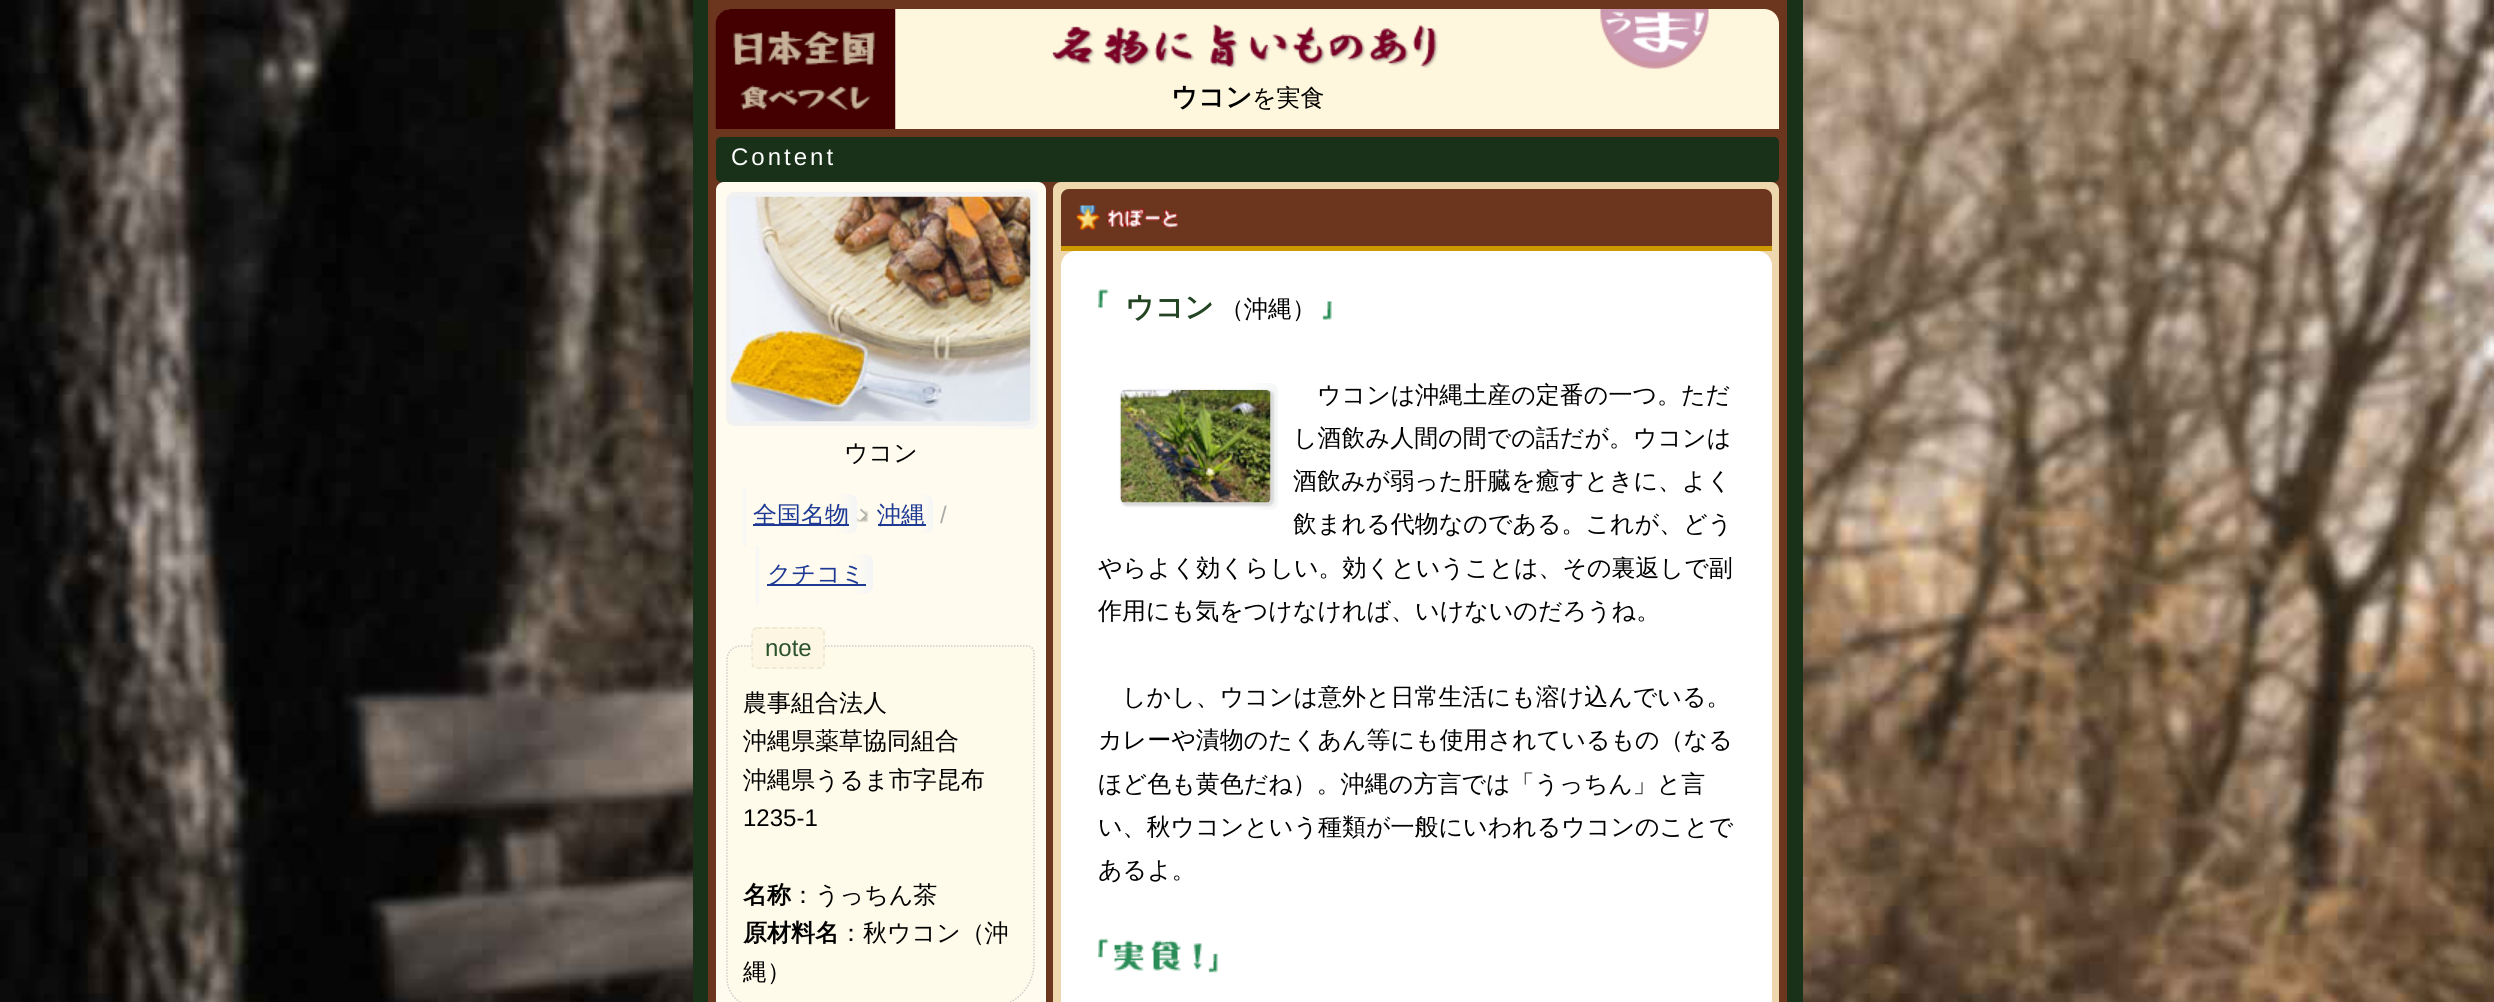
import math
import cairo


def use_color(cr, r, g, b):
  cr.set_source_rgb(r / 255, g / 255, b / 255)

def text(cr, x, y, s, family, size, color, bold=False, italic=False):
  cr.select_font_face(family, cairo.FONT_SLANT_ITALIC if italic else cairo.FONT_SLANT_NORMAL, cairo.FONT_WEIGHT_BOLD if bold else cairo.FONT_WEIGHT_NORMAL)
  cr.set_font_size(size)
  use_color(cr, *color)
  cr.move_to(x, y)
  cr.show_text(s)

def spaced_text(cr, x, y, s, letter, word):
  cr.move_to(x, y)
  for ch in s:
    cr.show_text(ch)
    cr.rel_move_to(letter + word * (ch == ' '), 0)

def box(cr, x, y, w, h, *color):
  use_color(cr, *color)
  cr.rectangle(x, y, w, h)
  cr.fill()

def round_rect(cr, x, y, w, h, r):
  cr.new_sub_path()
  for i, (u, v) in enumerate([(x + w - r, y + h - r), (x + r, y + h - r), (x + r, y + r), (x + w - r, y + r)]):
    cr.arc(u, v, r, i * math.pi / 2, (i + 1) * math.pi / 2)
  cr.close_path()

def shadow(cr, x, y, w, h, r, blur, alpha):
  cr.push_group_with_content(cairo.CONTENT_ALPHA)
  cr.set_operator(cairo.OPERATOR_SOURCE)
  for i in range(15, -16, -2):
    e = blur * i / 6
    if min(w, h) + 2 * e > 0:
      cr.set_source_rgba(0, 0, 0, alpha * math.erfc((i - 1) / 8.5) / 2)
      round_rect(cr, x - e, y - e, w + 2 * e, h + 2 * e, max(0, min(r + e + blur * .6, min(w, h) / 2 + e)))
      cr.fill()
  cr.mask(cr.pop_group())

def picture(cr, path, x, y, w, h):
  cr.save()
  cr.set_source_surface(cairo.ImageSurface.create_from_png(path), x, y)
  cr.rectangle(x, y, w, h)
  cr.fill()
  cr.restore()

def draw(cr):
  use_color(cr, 255, 255, 255)
  cr.paint()
  picture(cr, "img_01.png", 0, 0, 2494, 1002)
  box(cr, 693, 0, 15, 1002, 25, 49, 25)
  box(cr, 708, 0, 1079, 1002, 107, 53, 30)
  gradient = cairo.LinearGradient(716, 69, 1779, 69)
  gradient.add_color_stop_rgba(0, 0.42, 0.208, 0.118, 1)
  gradient.add_color_stop_rgba(0.05, 0.42, 0.208, 0.118, 1)
  gradient.add_color_stop_rgba(0.06, 1, 0.969, 0.867, 1)
  gradient.add_color_stop_rgba(0.94, 1, 0.969, 0.867, 1)
  gradient.add_color_stop_rgba(0.95, 0.42, 0.208, 0.118, 1)
  gradient.add_color_stop_rgba(1, 0.42, 0.208, 0.118, 1)
  cr.set_source(gradient)
  cr.rectangle(769, 9, 957, 120)
  cr.fill()
  use_color(cr, 255, 247, 221)
  cr.new_path()
  cr.move_to(731, 9)
  cr.line_to(896, 9)
  cr.line_to(896, 129)
  cr.line_to(716, 129)
  cr.line_to(716, 24)
  cr.curve_to(716, 15.5, 722.5, 9, 731, 9)
  cr.close_path()
  cr.fill()
  gradient = cairo.LinearGradient(716, 67, 896, 67)
  gradient.add_color_stop_rgba(0.8, 1, 0.969, 0.867, 1)
  gradient.add_color_stop_rgba(1, 0.957, 0.961, 0.965, 1)
  cr.set_source(gradient)
  cr.new_path()
  cr.move_to(716, 54)
  cr.line_to(888, 54)
  cr.curve_to(892.5, 54, 896, 57.5, 896, 62)
  cr.line_to(896, 72)
  cr.curve_to(896, 76.5, 892.5, 80, 888, 80)
  cr.line_to(716, 80)
  cr.close_path()
  cr.fill()
  picture(cr, "img_02.png", 715, 9, 181, 120)
  picture(cr, "img_03.png", 1052, 23, 387, 45)
  use_color(cr, 255, 247, 221)
  cr.new_path()
  cr.move_to(1599, 9)
  cr.line_to(1764, 9)
  cr.curve_to(1772.5, 9, 1779, 15.5, 1779, 24)
  cr.line_to(1779, 129)
  cr.line_to(1599, 129)
  cr.close_path()
  cr.fill()
  picture(cr, "img_04.png", 1600, 9, 109, 60)
  use_color(cr, 25, 49, 25)
  round_rect(cr, 716, 137, 1063, 45, 5)
  cr.fill()
  use_color(cr, 255, 251, 238)
  round_rect(cr, 716, 182, 330, 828, 8)
  cr.fill()
  gradient = cairo.LinearGradient(723, 309, 1038, 309)
  gradient.add_color_stop_rgba(0.8, 1, 0.984, 0.933, 1)
  gradient.add_color_stop_rgba(1, 0.957, 0.961, 0.965, 1)
  cr.set_source(gradient)
  cr.new_path()
  cr.move_to(723, 189)
  cr.line_to(1030, 189)
  cr.curve_to(1034.5, 189, 1038, 192.5, 1038, 197)
  cr.line_to(1038, 421)
  cr.curve_to(1038, 425.5, 1034.5, 429, 1030, 429)
  cr.line_to(723, 429)
  cr.close_path()
  cr.fill()
  round_rect(cr, 728.5, 194.5, 304, 229, 6.5)
  use_color(cr, 241, 241, 241)
  cr.set_line_width(5)
  cr.stroke()
  picture(cr, "img_05.png", 730, 196, 301, 226)
  gradient = cairo.LinearGradient(723, 517, 746, 517)
  gradient.add_color_stop_rgba(0.8, 1, 0.984, 0.933, 1)
  gradient.add_color_stop_rgba(1, 0.957, 0.961, 0.965, 1)
  cr.set_source(gradient)
  cr.rectangle(742, 488, 4, 58)
  cr.fill()
  gradient = cairo.LinearGradient(753, 514, 857, 514)
  gradient.add_color_stop_rgba(0.8, 1, 0.984, 0.933, 1)
  gradient.add_color_stop_rgba(1, 0.957, 0.961, 0.965, 1)
  cr.set_source(gradient)
  cr.new_path()
  cr.move_to(753, 494)
  cr.line_to(849, 494)
  cr.curve_to(853.5, 494, 857, 497.5, 857, 502)
  cr.line_to(857, 526)
  cr.curve_to(857, 530.5, 853.5, 534, 849, 534)
  cr.line_to(753, 534)
  cr.close_path()
  cr.fill()
  box(cr, 753, 524, 96, 2, 29, 57, 148)
  gradient = cairo.LinearGradient(870, 514, 933, 514)
  gradient.add_color_stop_rgba(0.8, 1, 0.984, 0.933, 1)
  gradient.add_color_stop_rgba(1, 0.957, 0.961, 0.965, 1)
  cr.set_source(gradient)
  cr.new_path()
  cr.move_to(870, 494)
  cr.line_to(925, 494)
  cr.curve_to(929.5, 494, 933, 497.5, 933, 502)
  cr.line_to(933, 526)
  cr.curve_to(933, 530.5, 929.5, 534, 925, 534)
  cr.line_to(870, 534)
  cr.close_path()
  cr.fill()
  cr.save()
  cr.set_fill_rule(cairo.FILL_RULE_EVEN_ODD)
  cr.new_path()
  cr.move_to(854, 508)
  cr.line_to(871, 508)
  cr.line_to(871, 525)
  cr.line_to(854, 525)
  cr.close_path()
  cr.move_to(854.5, 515)
  cr.line_to(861, 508.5)
  cr.line_to(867.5, 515)
  cr.line_to(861, 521.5)
  cr.close_path()
  cr.clip()
  use_color(cr, 0, 0, 0)
  shadow(cr, 858, 512, 9, 9, 0, 1, 0.3)
  cr.restore()
  use_color(cr, 171, 171, 169)
  cr.new_path()
  cr.move_to(860, 510)
  cr.line_to(861, 508.5)
  cr.line_to(867.5, 515)
  cr.line_to(866.5, 516)
  cr.close_path()
  cr.fill()
  cr.new_path()
  cr.move_to(860, 520.5)
  cr.line_to(866.5, 514)
  cr.line_to(867.5, 515)
  cr.line_to(861, 521.5)
  cr.close_path()
  cr.fill()
  box(cr, 878, 524, 48, 2, 29, 57, 148)
  gradient = cairo.LinearGradient(734, 575, 759, 575)
  gradient.add_color_stop_rgba(0.8, 1, 0.984, 0.933, 1)
  gradient.add_color_stop_rgba(1, 0.957, 0.961, 0.965, 1)
  cr.set_source(gradient)
  cr.rectangle(755, 546, 4, 59)
  cr.fill()
  gradient = cairo.LinearGradient(767, 574, 873, 574)
  gradient.add_color_stop_rgba(0.8, 1, 0.984, 0.933, 1)
  gradient.add_color_stop_rgba(1, 0.957, 0.961, 0.965, 1)
  cr.set_source(gradient)
  cr.new_path()
  cr.move_to(767, 554)
  cr.line_to(865, 554)
  cr.curve_to(869.5, 554, 873, 557.5, 873, 562)
  cr.line_to(873, 586)
  cr.curve_to(873, 590.5, 869.5, 594, 865, 594)
  cr.line_to(767, 594)
  cr.close_path()
  cr.fill()
  box(cr, 767, 584, 99, 2, 29, 57, 148)
  use_color(cr, 255, 251, 235)
  cr.new_path()
  cr.move_to(741, 645)
  cr.line_to(1027, 645)
  cr.curve_to(1031.5, 645, 1035, 648.5, 1035, 653)
  cr.line_to(1035, 963)
  cr.curve_to(1035, 988, 1015, 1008, 990, 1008)
  cr.line_to(756, 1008)
  cr.curve_to(739.5, 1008, 726, 994.5, 726, 978)
  cr.line_to(726, 660)
  cr.curve_to(726, 651.5, 732.5, 645, 741, 645)
  cr.close_path()
  cr.fill()
  cr.new_path()
  cr.move_to(741, 646)
  cr.line_to(1027.5, 646)
  cr.curve_to(1031, 646, 1034, 649, 1034, 652.5)
  cr.line_to(1034, 963)
  cr.curve_to(1034, 987.5, 1014.5, 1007, 990, 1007)
  cr.line_to(756, 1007)
  cr.curve_to(740, 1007, 727, 994, 727, 978)
  cr.line_to(727, 660)
  cr.curve_to(727, 652, 733, 646, 741, 646)
  cr.close_path()
  use_color(cr, 204, 204, 204)
  cr.set_line_width(1.5)
  cr.set_dash([1.5, 1.5])
  cr.stroke()
  use_color(cr, 253, 246, 226)
  round_rect(cr, 752, 627, 73, 42, 6)
  cr.fill()
  cr.new_path()
  cr.move_to(757.5, 628)
  cr.line_to(819, 628)
  cr.curve_to(822, 628, 824, 630, 824, 633)
  cr.line_to(824, 663)
  cr.curve_to(824, 666, 822, 668, 819, 668)
  cr.line_to(757.5, 668)
  cr.curve_to(754.5, 668, 752, 666, 752, 663)
  cr.line_to(752, 633)
  cr.curve_to(752, 630, 754.5, 628, 757.5, 628)
  cr.close_path()
  cr.set_source_rgba(0.169, 0.325, 0.169, 0.1)
  cr.set_dash([4.5, 3])
  cr.stroke()
  use_color(cr, 239, 215, 173)
  round_rect(cr, 1053, 182, 726, 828, 8)
  cr.fill()
  use_color(cr, 107, 53, 30)
  cr.new_path()
  cr.move_to(1069, 189)
  cr.line_to(1764, 189)
  cr.curve_to(1768.5, 189, 1772, 192.5, 1772, 197)
  cr.line_to(1772, 251)
  cr.line_to(1061, 251)
  cr.line_to(1061, 197)
  cr.curve_to(1061, 192.5, 1064.5, 189, 1069, 189)
  cr.close_path()
  cr.fill()
  box(cr, 1061, 246, 711, 5, 204, 153, 0)
  picture(cr, "img_06.png", 1076, 205, 102, 25)
  use_color(cr, 255, 255, 255)
  cr.new_path()
  cr.move_to(1076, 251)
  cr.line_to(1757, 251)
  cr.curve_to(1765.5, 251, 1772, 257.5, 1772, 266)
  cr.line_to(1772, 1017)
  cr.line_to(1061, 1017)
  cr.line_to(1061, 266)
  cr.curve_to(1061, 257.5, 1067.5, 251, 1076, 251)
  cr.close_path()
  cr.fill()
  picture(cr, "img_07.png", 1098, 289, 11, 19)
  picture(cr, "img_08.png", 1322, 301, 10, 19)
  gradient = cairo.LinearGradient(1113, 446, 1278, 446)
  gradient.add_color_stop_rgba(0.8, 1, 1, 1, 1)
  gradient.add_color_stop_rgba(1, 0.957, 0.961, 0.965, 1)
  cr.set_source(gradient)
  cr.new_path()
  cr.move_to(1113, 383)
  cr.line_to(1270, 383)
  cr.curve_to(1274.5, 383, 1278, 386.5, 1278, 391)
  cr.line_to(1278, 502)
  cr.curve_to(1278, 506.5, 1274.5, 510, 1270, 510)
  cr.line_to(1113, 510)
  cr.close_path()
  cr.fill()
  use_color(cr, 217, 217, 217)
  shadow(cr, 1121, 390, 153, 116, 6, 1, 1)
  picture(cr, "img_09.png", 1120, 390, 151, 113)
  picture(cr, "img_10.png", 1098, 938, 120, 35)
  box(cr, 1787, 0, 16, 1002, 25, 49, 25)
  text(cr, 1171, 106, "ウコン", "WenQuanYi Zen Hei", 26.5, (0, 0, 0), bold=True)
  text(cr, 1252, 106, "を実食", "WenQuanYi Zen Hei Medium", 24, (0, 0, 0))
  cr.select_font_face("Liberation Sans")
  use_color(cr, 255, 255, 255)
  spaced_text(cr, 731, 165, "Content", 3, 0)
  text(cr, 844, 461, "ウコン", "WenQuanYi Zen Hei Medium", 24, (0, 0, 0))
  text(cr, 753, 523, "全国名物", "WenQuanYi Zen Hei Medium", 24, (29, 57, 148))
  text(cr, 877, 523, "沖縄", "WenQuanYi Zen Hei Medium", 24, (29, 57, 148))
  text(cr, 940, 523, "/", "Liberation Sans", 24, (171, 171, 169))
  text(cr, 767, 582, "クチコミ", "WenQuanYi Zen Hei Medium", 24, (29, 57, 148))
  text(cr, 765, 656, "note", "Liberation Sans", 24, (43, 83, 43))
  text(cr, 743, 711, "農事組合法人", "WenQuanYi Zen Hei Medium", 24, (0, 0, 0))
  text(cr, 743, 749, "沖縄県薬草協同組合", "WenQuanYi Zen Hei Medium", 24, (0, 0, 0))
  text(cr, 743, 788, "沖縄県うるま市字昆布", "WenQuanYi Zen Hei Medium", 24, (0, 0, 0))
  text(cr, 743, 826, "1235-1", "Liberation Sans", 24, (0, 0, 0))
  text(cr, 743, 903, "名称", "WenQuanYi Zen Hei", 24, (0, 0, 0), bold=True)
  text(cr, 791, 903, "：うっちん茶", "WenQuanYi Zen Hei Medium", 24, (0, 0, 0))
  text(cr, 743, 941, "原材料名", "WenQuanYi Zen Hei", 24, (0, 0, 0), bold=True)
  text(cr, 839, 941, "：秋ウコン（沖", "WenQuanYi Zen Hei Medium", 24, (0, 0, 0))
  text(cr, 743, 980, "縄）", "WenQuanYi Zen Hei Medium", 24, (0, 0, 0))
  text(cr, 1125, 317, "ウコン", "WenQuanYi Zen Hei", 29, (34, 68, 34), bold=True)
  text(cr, 1220, 317, "（沖縄）", "WenQuanYi Zen Hei Medium", 24, (0, 0, 0))
  text(cr, 1317, 403, "ウコンは沖縄土産の定番の一つ。ただ", "WenQuanYi Zen Hei Medium", 24, (0, 0, 0))
  text(cr, 1293, 446, "し酒飲み人間の間での話だが。ウコンは", "WenQuanYi Zen Hei Medium", 24, (0, 0, 0))
  text(cr, 1293, 489, "酒飲みが弱った肝臓を癒すときに、よく", "WenQuanYi Zen Hei Medium", 24, (0, 0, 0))
  text(cr, 1293, 532, "飲まれる代物なのである。これが、どう", "WenQuanYi Zen Hei Medium", 24, (0, 0, 0))
  text(cr, 1098, 576, "やらよく効くらしい。効くということは、その裏返しで副", "WenQuanYi Zen Hei Medium", 24, (0, 0, 0))
  text(cr, 1098, 619, "作用にも気をつけなければ、いけないのだろうね。", "WenQuanYi Zen Hei Medium", 24, (0, 0, 0))
  text(cr, 1122, 705, "しかし、ウコンは意外と日常生活にも溶け込んでいる。", "WenQuanYi Zen Hei Medium", 24, (0, 0, 0))
  text(cr, 1098, 748, "カレーや漬物のたくあん等にも使用されているもの（なる", "WenQuanYi Zen Hei Medium", 24, (0, 0, 0))
  text(cr, 1098, 792, "ほど色も黄色だね）。沖縄の方言では「うっちん」と言", "WenQuanYi Zen Hei Medium", 24, (0, 0, 0))
  text(cr, 1098, 835, "い、秋ウコンという種類が一般にいわれるウコンのことで", "WenQuanYi Zen Hei Medium", 24, (0, 0, 0))
  text(cr, 1098, 878, "あるよ。", "WenQuanYi Zen Hei Medium", 24, (0, 0, 0))


surface = cairo.ImageSurface(cairo.FORMAT_RGB24, 2494, 1002)
cr = cairo.Context(surface)
options = cairo.FontOptions()
options.set_hint_metrics(cairo.HINT_METRICS_OFF)
options.set_hint_style(cairo.HINT_STYLE_NONE)
cr.set_font_options(options)
cr.set_miter_limit(4)
draw(cr)
surface.write_to_png("out.png")
